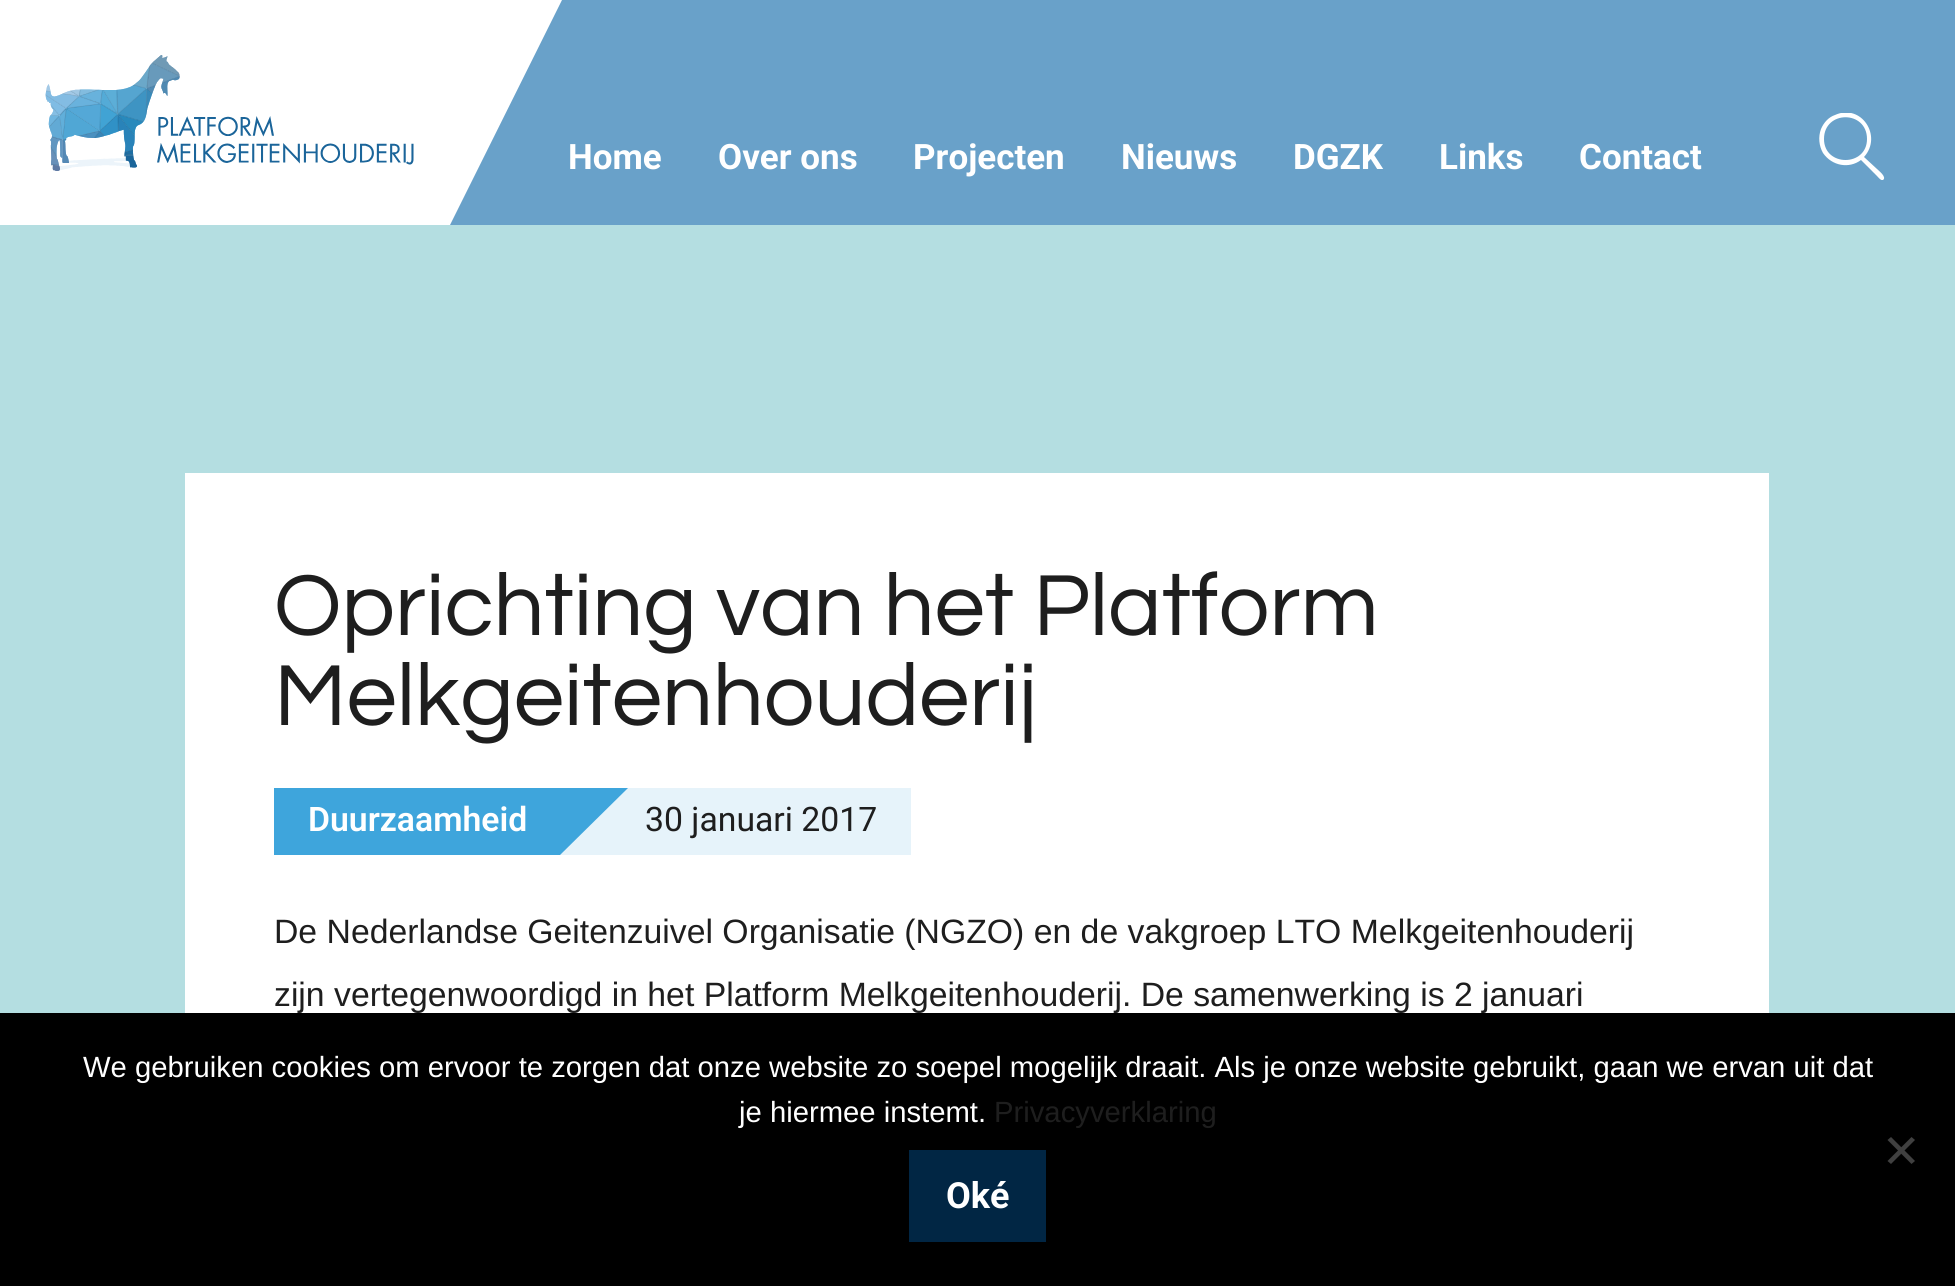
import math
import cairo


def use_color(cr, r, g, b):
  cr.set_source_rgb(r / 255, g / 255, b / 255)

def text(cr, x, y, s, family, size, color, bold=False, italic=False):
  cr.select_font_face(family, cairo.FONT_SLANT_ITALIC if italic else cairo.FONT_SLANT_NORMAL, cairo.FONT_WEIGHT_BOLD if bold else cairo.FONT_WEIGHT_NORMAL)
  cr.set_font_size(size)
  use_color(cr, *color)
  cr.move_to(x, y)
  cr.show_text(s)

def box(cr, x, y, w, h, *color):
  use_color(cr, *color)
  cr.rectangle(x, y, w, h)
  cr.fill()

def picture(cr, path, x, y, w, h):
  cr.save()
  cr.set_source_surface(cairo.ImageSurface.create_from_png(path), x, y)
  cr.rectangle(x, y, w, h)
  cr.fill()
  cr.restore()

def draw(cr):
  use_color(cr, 180, 222, 225)
  cr.paint()
  box(cr, 450, 0, 1505, 225, 105, 161, 201)
  use_color(cr, 255, 255, 255)
  cr.new_path()
  cr.move_to(0, 0)
  cr.line_to(562, 0)
  cr.line_to(450, 225)
  cr.line_to(0, 225)
  cr.close_path()
  cr.fill()
  picture(cr, "img_01.png", 45, 55, 369, 116)
  cr.save()
  cr.rectangle(1818, 113, 68, 67)
  cr.clip()
  cr.new_path()
  cr.move_to(1864, 157)
  cr.curve_to(1883, 136, 1861, 103, 1835, 115)
  cr.curve_to(1829, 117, 1824, 122, 1821, 129)
  cr.curve_to(1818, 137, 1819, 146, 1823, 153)
  cr.curve_to(1832, 166, 1849, 169, 1861, 160)
  cr.line_to(1877, 176)
  cr.curve_to(1878, 177, 1881, 181, 1883, 180)
  cr.curve_to(1887, 177, 1879, 171, 1877, 169)
  cr.close_path()
  cr.move_to(1824, 139)
  cr.curve_to(1824, 110, 1867, 110, 1867, 139)
  cr.curve_to(1867, 167, 1824, 167, 1824, 139)
  cr.close_path()
  cr.fill()
  cr.restore()
  box(cr, 185, 473, 1584, 540, 255, 255, 255)
  use_color(cr, 62, 165, 220)
  cr.new_path()
  cr.move_to(274, 788)
  cr.line_to(662, 788)
  cr.line_to(594, 855)
  cr.line_to(274, 855)
  cr.close_path()
  cr.fill()
  use_color(cr, 230, 243, 250)
  cr.new_path()
  cr.move_to(911, 855)
  cr.line_to(560, 855)
  cr.line_to(628, 788)
  cr.line_to(911, 788)
  cr.close_path()
  cr.fill()
  box(cr, 0, 1013, 1955, 273, 0, 0, 0)
  use_color(cr, 64, 64, 64)
  cr.new_path()
  cr.move_to(1911.5, 1137)
  cr.line_to(1915, 1140)
  cr.line_to(1891, 1164)
  cr.line_to(1887.5, 1161)
  cr.close_path()
  cr.fill()
  cr.new_path()
  cr.move_to(1887.5, 1140)
  cr.line_to(1891, 1137)
  cr.line_to(1915, 1161)
  cr.line_to(1911.5, 1164)
  cr.close_path()
  cr.fill()
  box(cr, 909, 1150, 137, 92, 1, 38, 68)
  text(cr, 568, 169, "Home", "Roboto", 35, (255, 255, 255), bold=True)
  text(cr, 718, 169, "Over ons", "Roboto", 35, (255, 255, 255), bold=True)
  text(cr, 913, 169, "Projecten", "Roboto", 35, (255, 255, 255), bold=True)
  text(cr, 1121, 169, "Nieuws", "Roboto", 35, (255, 255, 255), bold=True)
  text(cr, 1293, 169, "DGZK", "Roboto", 35, (255, 255, 255), bold=True)
  text(cr, 1439, 169, "Links", "Roboto", 35, (255, 255, 255), bold=True)
  text(cr, 1579, 169, "Contact", "Roboto", 35, (255, 255, 255), bold=True)
  text(cr, 274, 635, "Oprichting van het Platform", "Questrial", 90, (30, 30, 30))
  text(cr, 274, 725, "Melkgeitenhouderij", "Questrial", 90, (30, 30, 30))
  text(cr, 308, 831, "Duurzaamheid", "Roboto SemiBold", 33.75, (255, 255, 255))
  text(cr, 645, 831, "30 januari 2017", "Roboto", 33.75, (30, 30, 30))
  text(cr, 274, 943, "De Nederlandse Geitenzuivel Organisatie (NGZO) en de vakgroep LTO Melkgeitenhouderij", "Liberation Sans", 33.75, (30, 30, 30))
  text(cr, 274, 1006, "zijn vertegenwoordigd in het Platform Melkgeitenhouderij. De samenwerking is 2 januari", "Liberation Sans", 33.75, (30, 30, 30))
  text(cr, 83, 1077, "We gebruiken cookies om ervoor te zorgen dat onze website zo soepel mogelijk draait. Als je onze website gebruikt, gaan we ervan uit dat", "Liberation Sans", 29.25, (255, 255, 255))
  text(cr, 739, 1122, "je hiermee instemt.", "Liberation Sans", 29.25, (255, 255, 255))
  text(cr, 994, 1122, "Privacyverklaring", "Liberation Sans", 29.25, (30, 30, 30))
  text(cr, 946, 1208, "Oké", "Roboto", 36, (255, 255, 255), bold=True)


surface = cairo.ImageSurface(cairo.FORMAT_RGB24, 1955, 1286)
cr = cairo.Context(surface)
options = cairo.FontOptions()
options.set_hint_metrics(cairo.HINT_METRICS_OFF)
options.set_hint_style(cairo.HINT_STYLE_NONE)
cr.set_font_options(options)
cr.set_miter_limit(4)
draw(cr)
surface.write_to_png("out.png")
